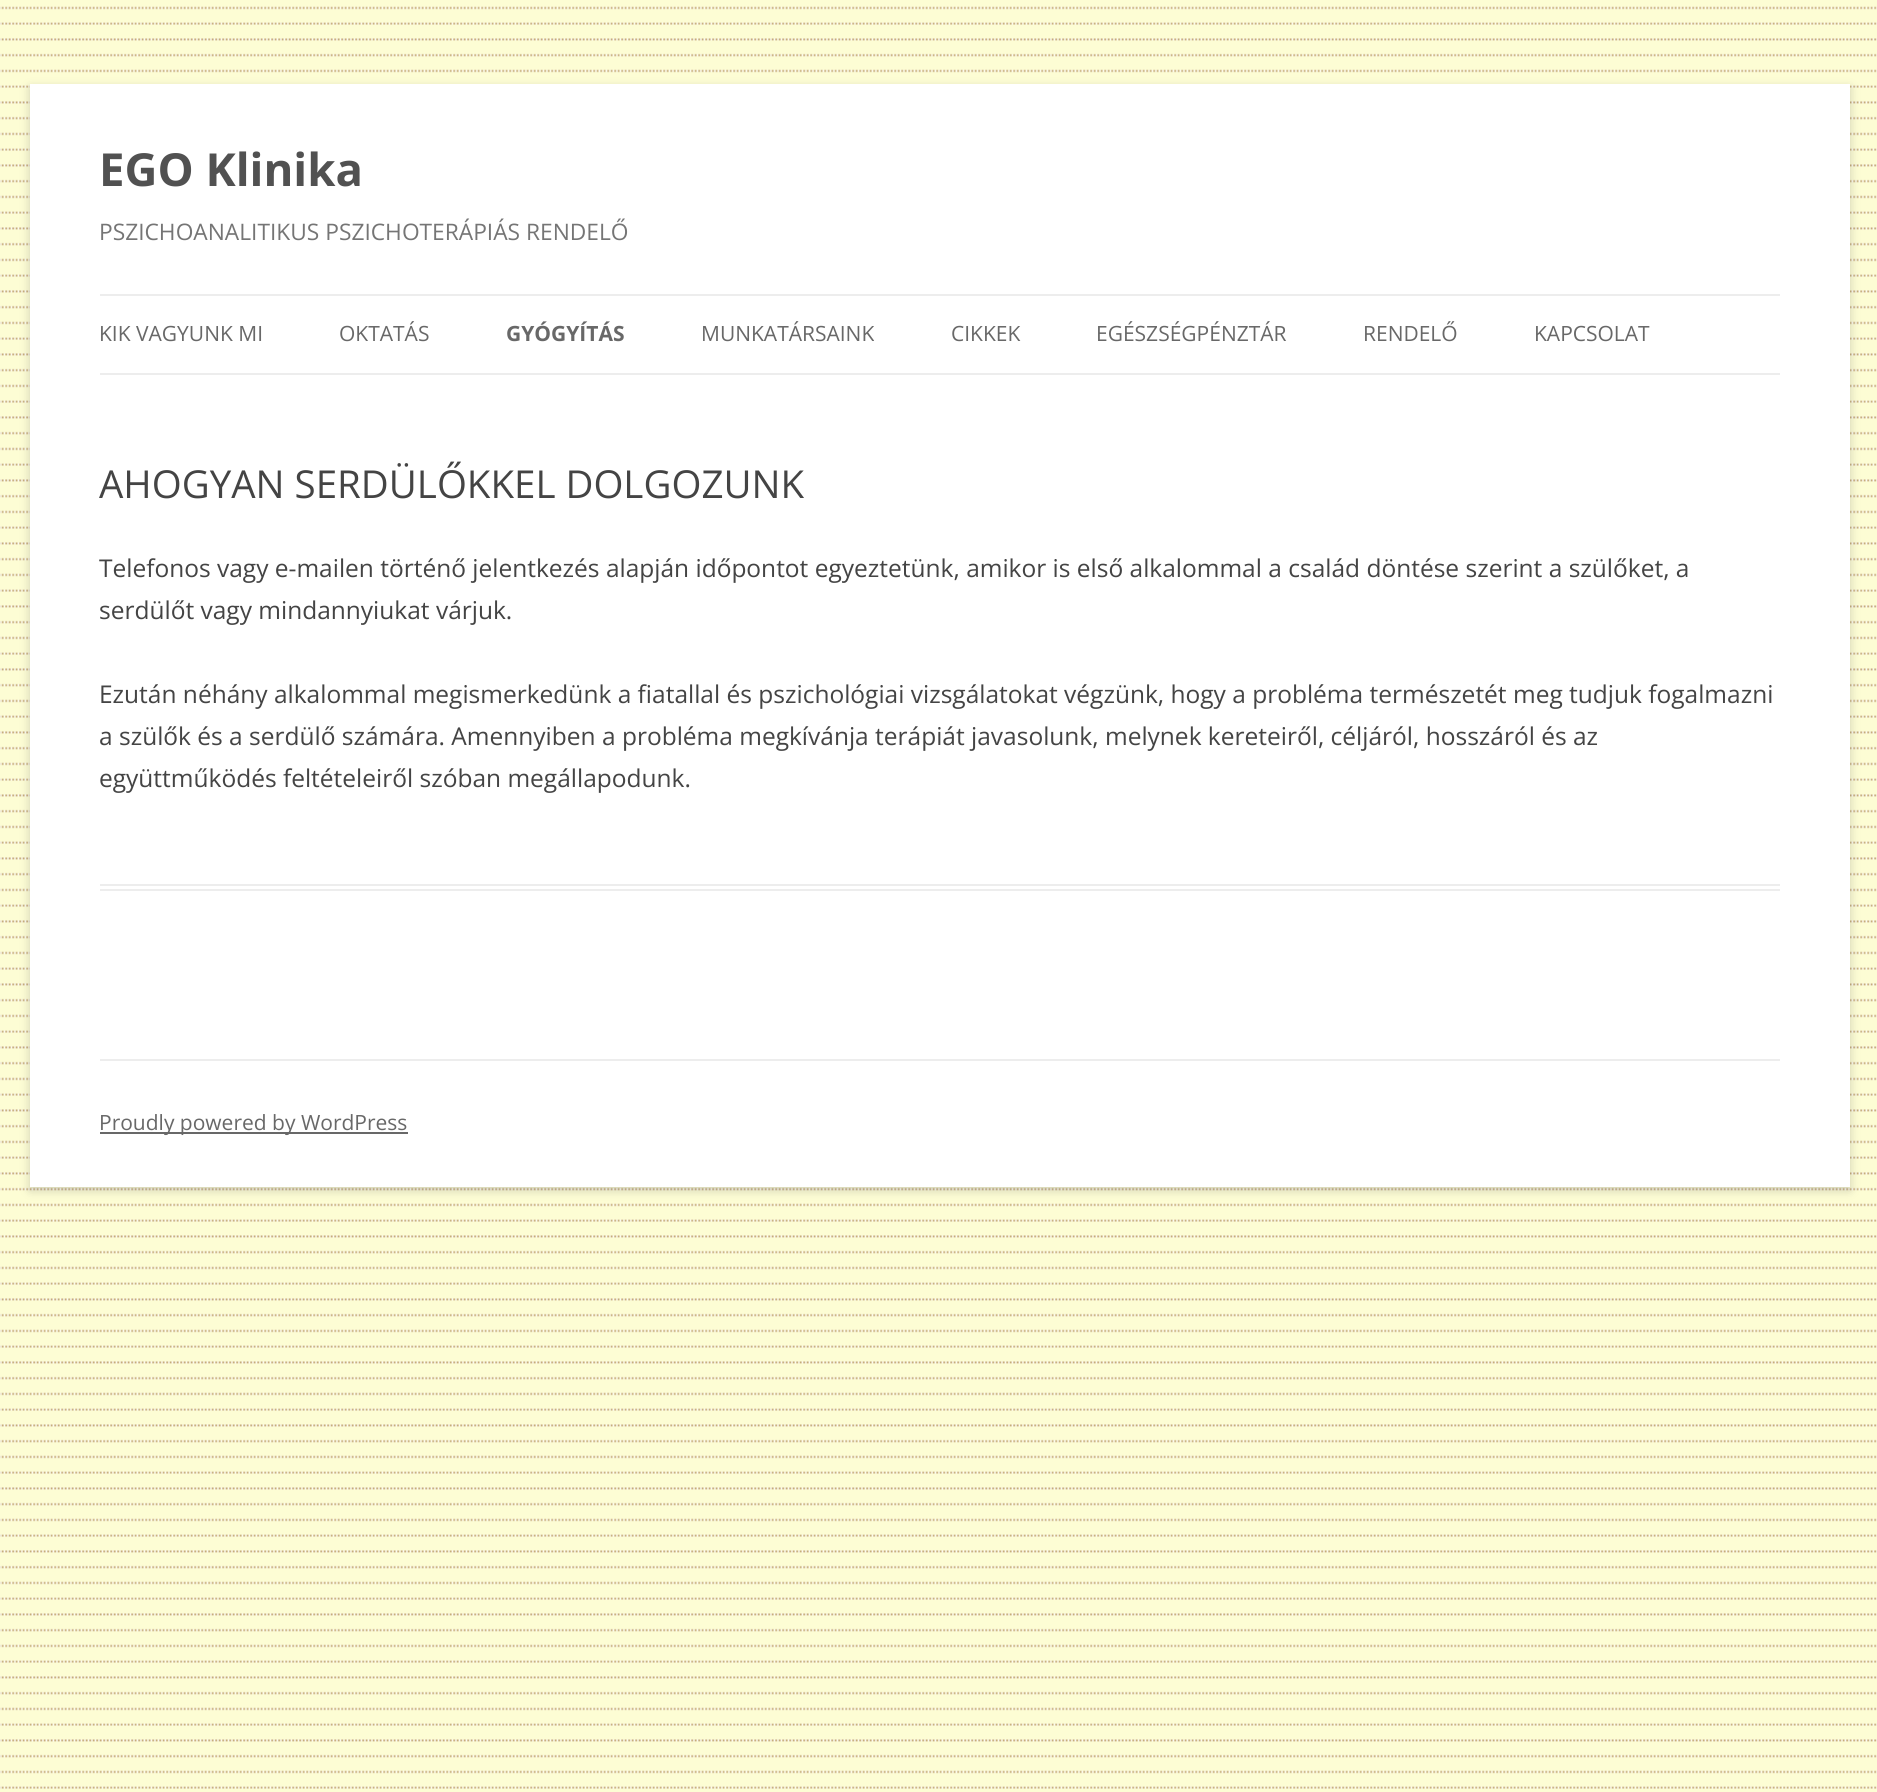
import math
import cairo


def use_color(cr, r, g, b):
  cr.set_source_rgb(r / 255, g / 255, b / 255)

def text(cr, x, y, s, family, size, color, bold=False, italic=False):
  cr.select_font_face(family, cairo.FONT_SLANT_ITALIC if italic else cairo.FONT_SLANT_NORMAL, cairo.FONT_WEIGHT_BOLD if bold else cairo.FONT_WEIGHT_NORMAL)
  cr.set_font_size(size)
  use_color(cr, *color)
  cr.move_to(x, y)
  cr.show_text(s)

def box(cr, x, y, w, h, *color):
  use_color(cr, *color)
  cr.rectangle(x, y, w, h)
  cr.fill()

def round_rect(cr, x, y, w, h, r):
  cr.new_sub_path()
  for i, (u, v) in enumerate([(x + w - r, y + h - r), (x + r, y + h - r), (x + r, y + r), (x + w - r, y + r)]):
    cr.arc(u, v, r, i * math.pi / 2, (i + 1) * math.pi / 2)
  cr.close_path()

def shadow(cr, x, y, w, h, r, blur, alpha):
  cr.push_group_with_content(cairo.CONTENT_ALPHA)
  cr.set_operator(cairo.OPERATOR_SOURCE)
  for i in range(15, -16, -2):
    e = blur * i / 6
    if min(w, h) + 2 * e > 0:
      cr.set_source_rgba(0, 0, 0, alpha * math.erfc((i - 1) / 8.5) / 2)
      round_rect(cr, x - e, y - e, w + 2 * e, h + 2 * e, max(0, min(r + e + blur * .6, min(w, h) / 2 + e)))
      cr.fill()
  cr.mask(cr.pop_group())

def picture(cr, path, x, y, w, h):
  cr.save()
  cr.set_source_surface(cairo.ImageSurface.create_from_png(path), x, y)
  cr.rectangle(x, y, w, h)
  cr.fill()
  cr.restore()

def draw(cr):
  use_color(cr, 253, 253, 212)
  cr.paint()
  picture(cr, "img_01.png", 0, 6, 1877, 1783)
  use_color(cr, 100, 100, 100)
  shadow(cr, 30, 88, 1820, 1102, 0, 5, 0.3)
  box(cr, 30, 84, 1820, 1103, 255, 255, 255)
  box(cr, 100, 294, 1680, 2, 237, 237, 237)
  box(cr, 100, 373, 1680, 2, 237, 237, 237)
  box(cr, 100, 884, 1680, 2, 237, 237, 237)
  box(cr, 100, 889, 1680, 2, 237, 237, 237)
  box(cr, 100, 1059, 1680, 2, 237, 237, 237)
  box(cr, 100, 1132, 308, 2, 104, 104, 104)
  text(cr, 99, 186, "EGO Klinika", "Open Sans", 45.5, (81, 81, 81), bold=True)
  text(cr, 99, 240, "PSZICHOANALITIKUS PSZICHOTERÁPIÁS RENDELŐ", "Open Sans", 22.75, (117, 117, 117))
  text(cr, 99, 341, "KIK VAGYUNK MI", "Open Sans", 21, (104, 104, 104))
  text(cr, 339, 341, "OKTATÁS", "Open Sans", 21, (104, 104, 104))
  text(cr, 506, 341, "GYÓGYÍTÁS", "Open Sans", 21, (104, 104, 104), bold=True)
  text(cr, 701, 341, "MUNKATÁRSAINK", "Open Sans", 21, (104, 104, 104))
  text(cr, 951, 341, "CIKKEK", "Open Sans", 21, (104, 104, 104))
  text(cr, 1096, 341, "EGÉSZSÉGPÉNZTÁR", "Open Sans", 21, (104, 104, 104))
  text(cr, 1363, 341, "RENDELŐ", "Open Sans", 21, (104, 104, 104))
  text(cr, 1534, 341, "KAPCSOLAT", "Open Sans", 21, (104, 104, 104))
  text(cr, 99, 498, "AHOGYAN SERDÜLŐKKEL DOLGOZUNK", "Open Sans", 38.5, (68, 68, 68))
  text(cr, 99, 577, "Telefonos vagy e-mailen történő jelentkezés alapján időpontot egyeztetünk, amikor is első alkalommal a család döntése szerint a szülőket, a", "Open Sans", 24.5, (68, 68, 68))
  text(cr, 99, 619, "serdülőt vagy mindannyiukat várjuk.", "Open Sans", 24.5, (68, 68, 68))
  text(cr, 99, 703, "Ezután néhány alkalommal megismerkedünk a fiatallal és pszichológiai vizsgálatokat végzünk, hogy a probléma természetét meg tudjuk fogalmazni", "Open Sans", 24.5, (68, 68, 68))
  text(cr, 99, 745, "a szülők és a serdülő számára. Amennyiben a probléma megkívánja terápiát javasolunk, melynek kereteiről, céljáról, hosszáról és az", "Open Sans", 24.5, (68, 68, 68))
  text(cr, 99, 787, "együttműködés feltételeiről szóban megállapodunk.", "Open Sans", 24.5, (68, 68, 68))
  text(cr, 99, 1130, "Proudly powered by WordPress", "Open Sans", 21, (104, 104, 104))


surface = cairo.ImageSurface(cairo.FORMAT_RGB24, 1877, 1792)
cr = cairo.Context(surface)
options = cairo.FontOptions()
options.set_hint_metrics(cairo.HINT_METRICS_OFF)
options.set_hint_style(cairo.HINT_STYLE_NONE)
cr.set_font_options(options)
cr.set_miter_limit(4)
draw(cr)
surface.write_to_png("out.png")
